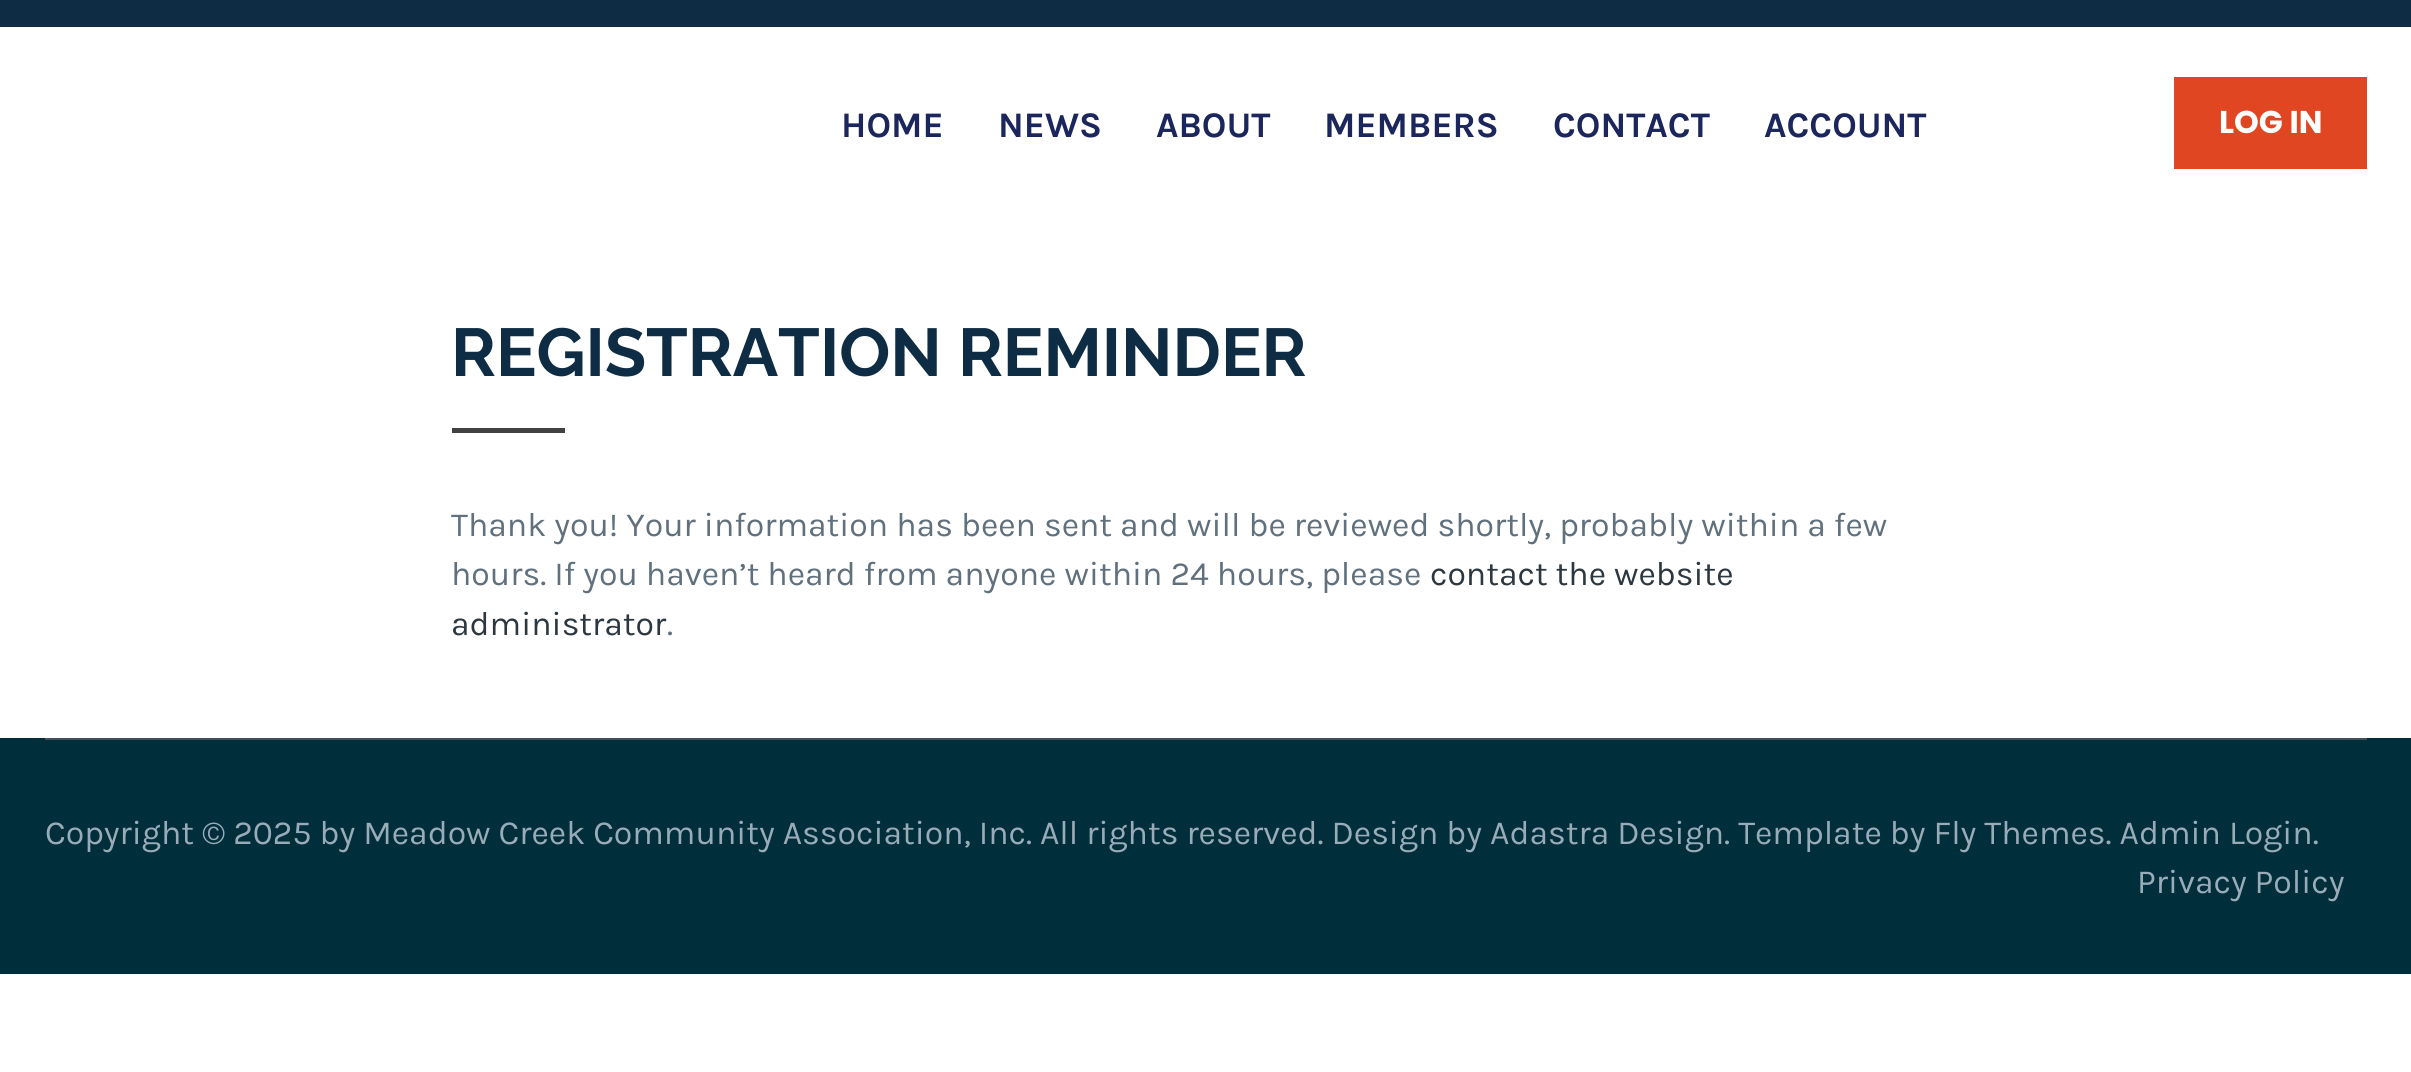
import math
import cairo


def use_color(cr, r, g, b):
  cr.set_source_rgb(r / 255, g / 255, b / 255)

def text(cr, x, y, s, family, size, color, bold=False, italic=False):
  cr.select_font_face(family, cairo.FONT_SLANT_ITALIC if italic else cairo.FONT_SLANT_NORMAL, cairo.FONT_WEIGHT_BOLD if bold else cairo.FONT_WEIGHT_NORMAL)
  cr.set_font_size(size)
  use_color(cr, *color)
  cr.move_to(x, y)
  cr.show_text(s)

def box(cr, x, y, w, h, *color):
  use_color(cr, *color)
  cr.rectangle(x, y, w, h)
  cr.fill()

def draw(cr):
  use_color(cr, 255, 255, 255)
  cr.paint()
  box(cr, 0, 0, 2411, 27, 14, 45, 69)
  box(cr, 2174, 77, 193, 92, 224, 70, 34)
  box(cr, 452, 428, 113, 5, 66, 66, 66)
  box(cr, 0, 738, 2411, 236, 0, 46, 59)
  box(cr, 45, 738, 2322, 2, 66, 80, 91)
  text(cr, 841, 137, "HOME", "Karla", 36, (27, 38, 92), bold=True)
  text(cr, 998, 137, "NEWS", "Karla", 36, (27, 38, 92), bold=True)
  text(cr, 1156, 137, "ABOUT", "Karla", 36, (27, 38, 92), bold=True)
  text(cr, 1324, 137, "MEMBERS", "Karla", 36, (27, 38, 92), bold=True)
  text(cr, 1553, 137, "CONTACT", "Karla", 36, (27, 38, 92), bold=True)
  text(cr, 1764, 137, "ACCOUNT", "Karla", 36, (27, 38, 92), bold=True)
  text(cr, 2219, 133, "LOG IN", "Poppins", 31.5, (255, 255, 255), bold=True)
  text(cr, 451, 376, "REGISTRATION REMINDER", "Raleway", 67.5, (14, 45, 69), bold=True)
  text(cr, 451, 536, "Thank you! Your information has been sent and will be reviewed shortly, probably within a few", "Karla", 33.75, (96, 112, 125))
  text(cr, 451, 585, "hours. If you haven’t heard from anyone within 24 hours, please", "Karla", 33.75, (96, 112, 125))
  text(cr, 1430, 585, "contact the website", "Karla", 33.75, (44, 55, 64))
  text(cr, 451, 635, "administrator", "Karla", 33.75, (44, 55, 64))
  text(cr, 667, 635, ".", "Karla", 33.75, (96, 112, 125))
  text(cr, 45, 844, "Copyright © 2025 by Meadow Creek Community Association, Inc. All rights reserved. Design by Adastra Design. Template by Fly Themes. Admin Login.", "Karla", 33.75, (153, 171, 184))
  text(cr, 2137, 893, "Privacy Policy", "Karla", 33.75, (153, 171, 184))


surface = cairo.ImageSurface(cairo.FORMAT_RGB24, 2411, 1072)
cr = cairo.Context(surface)
options = cairo.FontOptions()
options.set_hint_metrics(cairo.HINT_METRICS_OFF)
options.set_hint_style(cairo.HINT_STYLE_NONE)
cr.set_font_options(options)
cr.set_miter_limit(4)
draw(cr)
surface.write_to_png("out.png")
